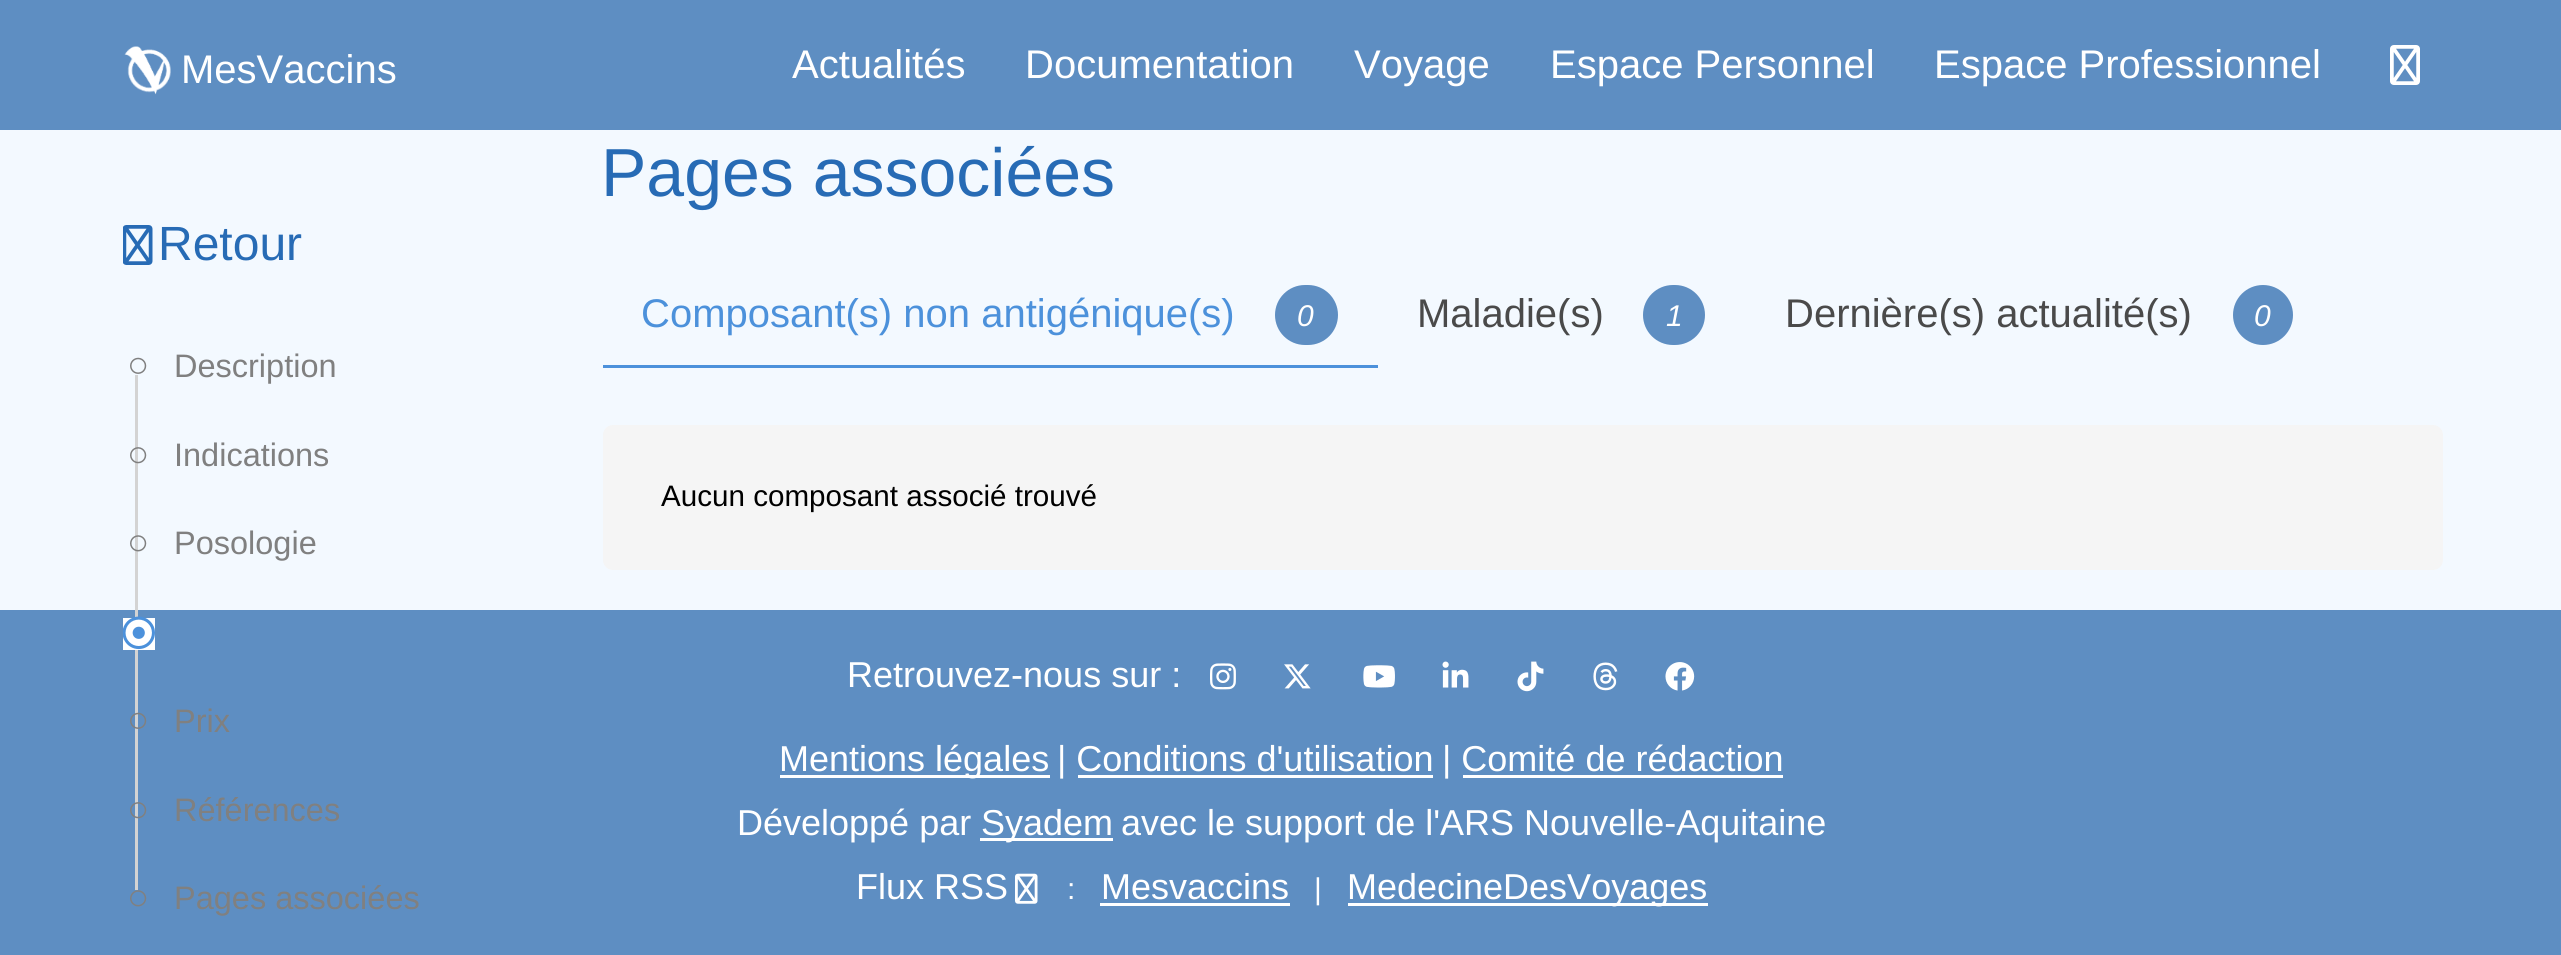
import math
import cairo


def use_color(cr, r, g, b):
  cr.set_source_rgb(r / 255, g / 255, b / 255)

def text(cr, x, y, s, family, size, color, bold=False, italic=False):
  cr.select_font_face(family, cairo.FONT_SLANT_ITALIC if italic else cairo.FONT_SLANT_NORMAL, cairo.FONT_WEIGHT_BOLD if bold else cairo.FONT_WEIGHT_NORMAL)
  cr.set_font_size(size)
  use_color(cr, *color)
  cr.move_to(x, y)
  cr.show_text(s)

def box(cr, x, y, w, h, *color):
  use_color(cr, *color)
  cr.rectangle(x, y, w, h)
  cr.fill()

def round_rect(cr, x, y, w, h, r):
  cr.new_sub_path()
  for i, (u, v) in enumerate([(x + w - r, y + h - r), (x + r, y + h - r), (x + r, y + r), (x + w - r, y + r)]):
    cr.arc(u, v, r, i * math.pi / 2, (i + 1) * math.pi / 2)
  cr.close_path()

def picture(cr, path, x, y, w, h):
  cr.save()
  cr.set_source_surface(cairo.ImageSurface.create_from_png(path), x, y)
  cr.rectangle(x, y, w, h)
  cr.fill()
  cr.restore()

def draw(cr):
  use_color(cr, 243, 249, 255)
  cr.paint()
  box(cr, 0, 0, 2561, 130, 94, 142, 194)
  picture(cr, "img_01.png", 124, 46, 47, 49)
  picture(cr, "img_02.png", 2390, 45, 30, 40)
  picture(cr, "img_03.png", 123, 225, 30, 40)
  picture(cr, "img_04.png", 130, 357, 17, 17)
  box(cr, 0, 610, 2561, 345, 94, 142, 194)
  box(cr, 135, 375, 3, 515, 211, 211, 211)
  picture(cr, "img_05.png", 130, 447, 17, 17)
  picture(cr, "img_06.png", 130, 535, 17, 17)
  box(cr, 123, 618, 32, 32, 255, 255, 255)
  picture(cr, "img_07.png", 123, 616, 32, 34)
  picture(cr, "img_08.png", 130, 712, 17, 17)
  picture(cr, "img_09.png", 130, 802, 17, 17)
  picture(cr, "img_10.png", 130, 890, 17, 17)
  box(cr, 603, 365, 775, 3, 76, 145, 219)
  use_color(cr, 94, 142, 194)
  round_rect(cr, 1275, 285, 63, 60, 30)
  cr.fill()
  round_rect(cr, 1643, 285, 62, 60, 30)
  cr.fill()
  cr.arc(2263, 315, 30, 0, 2 * math.pi)
  cr.fill()
  use_color(cr, 245, 245, 245)
  round_rect(cr, 603, 425, 1840, 145, 10)
  cr.fill()
  picture(cr, "img_11.png", 1210, 663, 26, 27)
  picture(cr, "img_12.png", 1284, 664, 27, 25)
  picture(cr, "img_13.png", 1363, 665, 32, 23)
  picture(cr, "img_14.png", 1442, 661, 27, 27)
  picture(cr, "img_15.png", 1517, 661, 27, 31)
  picture(cr, "img_16.png", 1593, 662, 25, 29)
  picture(cr, "img_17.png", 1665, 662, 30, 29)
  box(cr, 780, 775, 270, 3, 255, 255, 255)
  box(cr, 1078, 775, 355, 3, 255, 255, 255)
  box(cr, 1463, 775, 320, 3, 255, 255, 255)
  box(cr, 980, 838, 133, 3, 255, 255, 255)
  picture(cr, "img_18.png", 1015, 873, 23, 31)
  box(cr, 1100, 903, 190, 3, 255, 255, 255)
  box(cr, 1348, 903, 360, 3, 255, 255, 255)
  text(cr, 181, 83, "MesVaccins", "Liberation Sans", 40, (255, 255, 255))
  text(cr, 792, 78, "Actualités", "Liberation Sans", 40, (255, 255, 255))
  text(cr, 1025, 78, "Documentation", "Liberation Sans", 40, (255, 255, 255))
  text(cr, 1354, 78, "Voyage", "Liberation Sans", 40, (255, 255, 255))
  text(cr, 1550, 78, "Espace Personnel", "Liberation Sans", 40, (255, 255, 255))
  text(cr, 1934, 78, "Espace Professionnel", "Liberation Sans", 40, (255, 255, 255))
  text(cr, 158, 260, "Retour", "Liberation Sans", 48, (39, 107, 181))
  text(cr, 174, 377, "Description", "Liberation Sans", 32.5, (128, 128, 128))
  text(cr, 174, 466, "Indications", "Liberation Sans", 32.5, (128, 128, 128))
  text(cr, 174, 554, "Posologie", "Liberation Sans", 32.5, (128, 128, 128))
  text(cr, 174, 732, "Prix", "Liberation Sans", 32.5, (128, 128, 128))
  text(cr, 174, 821, "Références", "Liberation Sans", 32.5, (128, 128, 128))
  text(cr, 174, 909, "Pages associées", "Liberation Sans", 32.5, (128, 128, 128))
  text(cr, 601, 196, "Pages associées", "Liberation Sans", 68, (39, 107, 181))
  text(cr, 641, 327, "Composant(s) non antigénique(s)", "Liberation Sans", 40, (76, 145, 219))
  text(cr, 1297, 326, "0", "Liberation Sans", 30, (255, 255, 255), italic=True)
  text(cr, 1417, 327, "Maladie(s)", "Liberation Sans", 40, (74, 74, 74))
  text(cr, 1666, 326, "1", "Liberation Sans", 30, (255, 255, 255), italic=True)
  text(cr, 1785, 327, "Dernière(s) actualité(s)", "Liberation Sans", 40, (74, 74, 74))
  text(cr, 2254, 326, "0", "Liberation Sans", 30, (255, 255, 255), italic=True)
  text(cr, 661, 506, "Aucun composant associé trouvé", "Liberation Sans", 29.6, (0, 0, 0))
  text(cr, 847, 687, "Retrouvez-nous sur :", "Liberation Sans", 36, (255, 255, 255))
  text(cr, 779, 771, "Mentions légales", "Liberation Sans", 36, (255, 255, 255))
  text(cr, 1057, 771, "| Conditions d'utilisation", "Liberation Sans", 36, (255, 255, 255))
  text(cr, 1442, 771, "| Comité de rédaction", "Liberation Sans", 36, (255, 255, 255))
  text(cr, 737, 835, "Développé par", "Liberation Sans", 36, (255, 255, 255))
  text(cr, 981, 835, "Syadem", "Liberation Sans", 36, (255, 255, 255))
  text(cr, 1121, 835, "avec le support de l'ARS Nouvelle-Aquitaine", "Liberation Sans", 36, (255, 255, 255))
  text(cr, 856, 899, "Flux RSS", "Liberation Sans", 36, (255, 255, 255))
  text(cr, 1067, 899, ":", "Liberation Sans", 30, (255, 255, 255))
  text(cr, 1101, 899, "Mesvaccins", "Liberation Sans", 36, (255, 255, 255))
  text(cr, 1314, 899, "|", "Liberation Sans", 30, (255, 255, 255))
  text(cr, 1347, 899, "MedecineDesVoyages", "Liberation Sans", 36, (255, 255, 255))


surface = cairo.ImageSurface(cairo.FORMAT_RGB24, 2561, 955)
cr = cairo.Context(surface)
options = cairo.FontOptions()
options.set_hint_metrics(cairo.HINT_METRICS_OFF)
options.set_hint_style(cairo.HINT_STYLE_NONE)
cr.set_font_options(options)
cr.set_miter_limit(4)
draw(cr)
surface.write_to_png("out.png")
